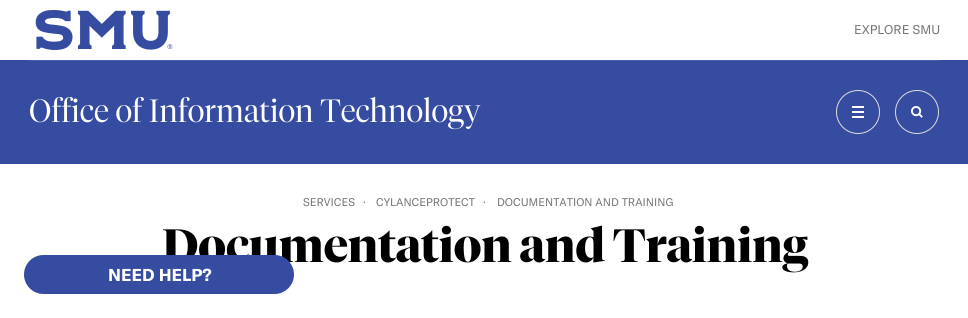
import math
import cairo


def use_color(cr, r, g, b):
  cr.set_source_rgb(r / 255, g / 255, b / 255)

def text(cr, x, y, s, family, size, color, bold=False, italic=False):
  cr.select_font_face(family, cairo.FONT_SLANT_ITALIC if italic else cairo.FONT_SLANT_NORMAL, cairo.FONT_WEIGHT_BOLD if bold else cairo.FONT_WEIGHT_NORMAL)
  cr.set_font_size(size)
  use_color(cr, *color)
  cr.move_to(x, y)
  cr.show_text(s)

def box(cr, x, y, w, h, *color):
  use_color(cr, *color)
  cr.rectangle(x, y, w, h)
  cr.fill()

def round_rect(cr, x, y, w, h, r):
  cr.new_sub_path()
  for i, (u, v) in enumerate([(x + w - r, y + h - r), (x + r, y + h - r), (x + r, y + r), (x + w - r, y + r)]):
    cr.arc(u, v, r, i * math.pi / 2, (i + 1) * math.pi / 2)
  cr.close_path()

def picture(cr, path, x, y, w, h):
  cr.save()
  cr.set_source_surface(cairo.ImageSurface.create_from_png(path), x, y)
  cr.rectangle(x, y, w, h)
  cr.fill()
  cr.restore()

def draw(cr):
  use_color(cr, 255, 255, 255)
  cr.paint()
  picture(cr, "img_01.png", 35, 10, 138, 40)
  box(cr, 0, 60, 968, 104, 53, 76, 161)
  box(cr, 29, 60, 910, 1, 73, 94, 170)
  cr.arc(858, 112, 21.5, 0, 2 * math.pi)
  use_color(cr, 221, 221, 221)
  cr.set_line_width(1)
  cr.stroke()
  picture(cr, "img_02.png", 852, 106, 12, 12)
  cr.arc(917, 112, 21.5, 0, 2 * math.pi)
  cr.stroke()
  picture(cr, "img_03.png", 911, 106, 12, 12)
  text(cr, 854, 34, "EXPLORE SMU", "GT America", 12.5, (118, 118, 118))
  text(cr, 29, 122, "Office of Information Technology", "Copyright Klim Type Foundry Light", 32, (255, 255, 255))
  text(cr, 303, 206, "SERVICES", "GT America", 11, (118, 118, 118))
  text(cr, 363, 206, "·", "GT America", 11, (108, 117, 125))
  text(cr, 376, 206, "CYLANCEPROTECT", "GT America", 11, (118, 118, 118))
  text(cr, 483, 206, "·", "GT America", 11, (108, 117, 125))
  text(cr, 497, 206, "DOCUMENTATION AND TRAINING", "GT America", 11, (118, 118, 118))
  text(cr, 162, 262, "Documentation and Training", "Copyright Klim Type Foundry", 46.5, (0, 0, 0), bold=True)
  use_color(cr, 53, 76, 161)
  round_rect(cr, 24, 255, 270, 39, 19.5)
  cr.fill()
  text(cr, 108, 281, "NEED HELP?", "GT America", 17, (255, 255, 255), bold=True)


surface = cairo.ImageSurface(cairo.FORMAT_RGB24, 968, 318)
cr = cairo.Context(surface)
options = cairo.FontOptions()
options.set_hint_metrics(cairo.HINT_METRICS_OFF)
options.set_hint_style(cairo.HINT_STYLE_NONE)
cr.set_font_options(options)
cr.set_miter_limit(4)
draw(cr)
surface.write_to_png("out.png")
